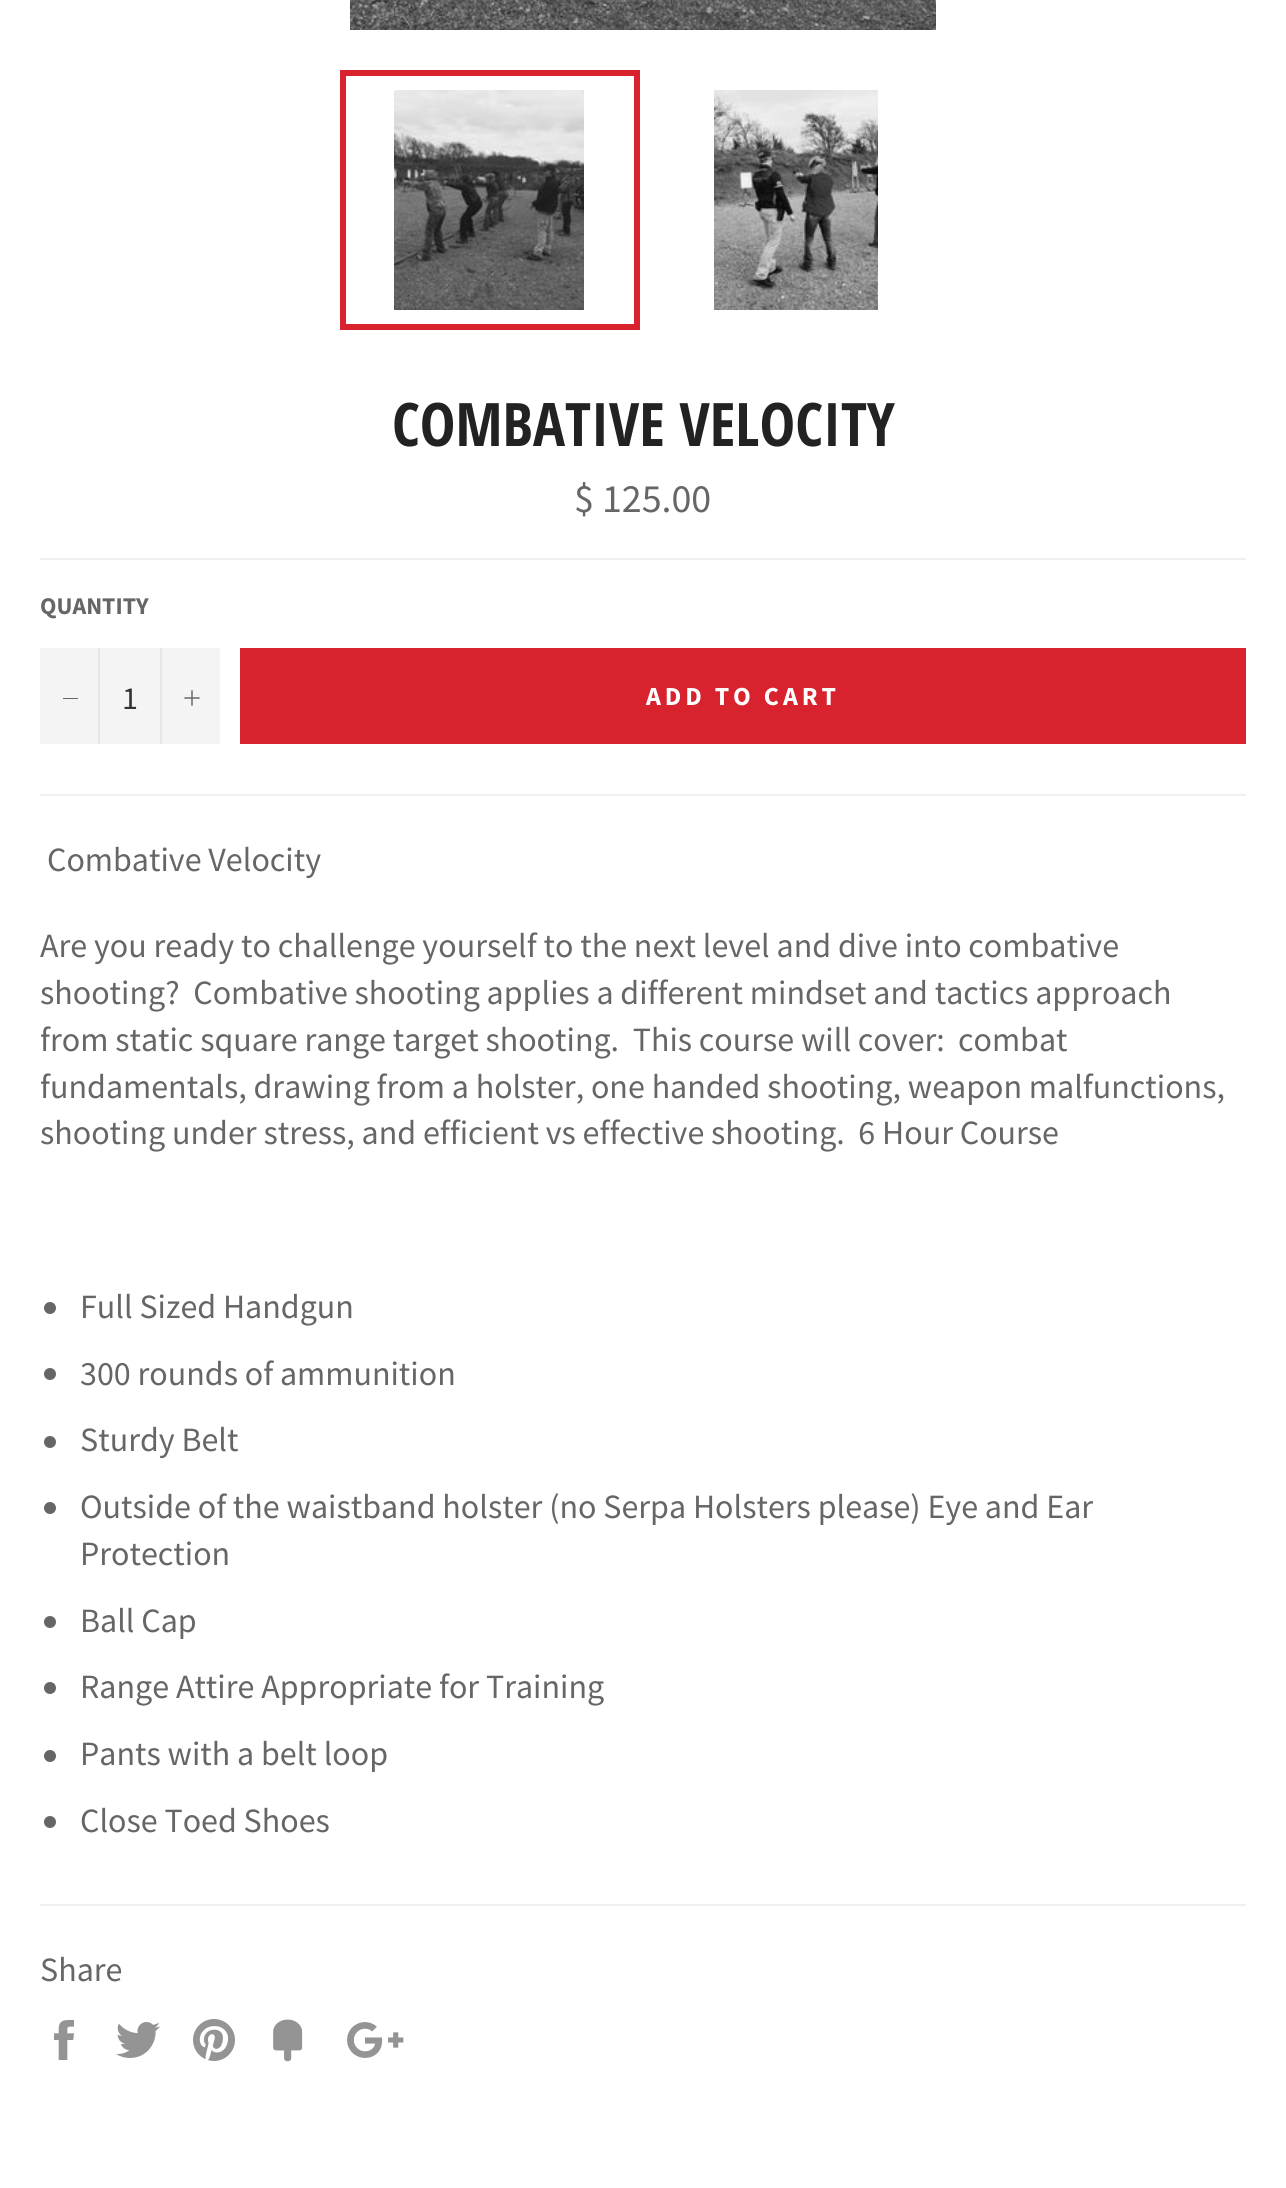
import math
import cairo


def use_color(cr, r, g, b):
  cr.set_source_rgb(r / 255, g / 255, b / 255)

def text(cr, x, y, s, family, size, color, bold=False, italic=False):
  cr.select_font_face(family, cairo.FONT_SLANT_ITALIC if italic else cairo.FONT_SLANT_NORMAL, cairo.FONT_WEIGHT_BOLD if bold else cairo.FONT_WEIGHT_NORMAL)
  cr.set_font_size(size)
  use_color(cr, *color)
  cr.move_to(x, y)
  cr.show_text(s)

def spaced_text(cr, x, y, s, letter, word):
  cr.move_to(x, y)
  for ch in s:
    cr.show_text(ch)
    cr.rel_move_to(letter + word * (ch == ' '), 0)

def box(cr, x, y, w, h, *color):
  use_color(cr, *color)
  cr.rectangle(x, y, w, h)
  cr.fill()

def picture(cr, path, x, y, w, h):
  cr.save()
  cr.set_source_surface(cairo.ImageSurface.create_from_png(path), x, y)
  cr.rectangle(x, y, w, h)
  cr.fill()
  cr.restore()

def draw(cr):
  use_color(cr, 255, 255, 255)
  cr.paint()
  picture(cr, "img_01.png", 350, 0, 586, 30)
  picture(cr, "img_02.png", 394, 90, 190, 220)
  cr.rectangle(343, 73, 294, 254)
  use_color(cr, 216, 35, 47)
  cr.set_line_width(6)
  cr.stroke()
  picture(cr, "img_03.png", 714, 90, 164, 220)
  box(cr, 40, 558, 1206, 2, 240, 240, 240)
  box(cr, 40, 648, 180, 96, 244, 244, 244)
  box(cr, 98, 648, 2, 96, 231, 231, 231)
  box(cr, 63, 698, 15, 1, 102, 102, 102)
  box(cr, 160, 648, 2, 96, 231, 231, 231)
  picture(cr, "img_04.png", 184, 690, 16, 16)
  box(cr, 240, 648, 1006, 96, 216, 35, 47)
  box(cr, 40, 794, 1206, 2, 240, 240, 240)
  use_color(cr, 102, 102, 102)
  cr.arc(50, 1308, 6, 0, 2 * math.pi)
  cr.fill()
  cr.arc(50, 1374, 6, 0, 2 * math.pi)
  cr.fill()
  cr.arc(50, 1442, 6, 0, 2 * math.pi)
  cr.fill()
  cr.arc(50, 1508, 6, 0, 2 * math.pi)
  cr.fill()
  cr.arc(50, 1622, 6, 0, 2 * math.pi)
  cr.fill()
  cr.arc(50, 1688, 6, 0, 2 * math.pi)
  cr.fill()
  cr.arc(50, 1756, 6, 0, 2 * math.pi)
  cr.fill()
  cr.arc(50, 1822, 6, 0, 2 * math.pi)
  cr.fill()
  box(cr, 40, 1904, 1206, 2, 240, 240, 240)
  picture(cr, "img_05.png", 54, 2020, 20, 40)
  picture(cr, "img_06.png", 116, 2022, 44, 36)
  picture(cr, "img_07.png", 193, 2019, 42, 42)
  picture(cr, "img_08.png", 273, 2019, 30, 43)
  picture(cr, "img_09.png", 347, 2022, 57, 36)
  text(cr, 392, 446, "COMBATIVE VELOCITY", "Open Sans Condensed", 60, (34, 34, 34), bold=True)
  text(cr, 574, 512, "$ 125.00", "Source Sans Pro", 40, (102, 102, 102))
  text(cr, 40, 614, "QUANTITY", "Source Sans Pro", 24, (102, 102, 102), bold=True)
  text(cr, 122, 709, "1", "Source Sans Pro", 32, (51, 51, 51))
  cr.select_font_face("Source Sans Pro", cairo.FONT_SLANT_NORMAL, cairo.FONT_WEIGHT_BOLD)
  cr.set_font_size(26)
  use_color(cr, 255, 255, 255)
  spaced_text(cr, 646, 705, "ADD TO CART", 3.9, 0)
  text(cr, 47, 871, "Combative Velocity", "Source Sans Pro", 34, (102, 102, 102))
  text(cr, 40, 957, "Are you ready to challenge yourself to the next level and dive into combative", "Source Sans Pro", 34, (102, 102, 102))
  text(cr, 40, 1004, "shooting?  Combative shooting applies a different mindset and tactics approach", "Source Sans Pro", 34, (102, 102, 102))
  text(cr, 40, 1051, "from static square range target shooting.  This course will cover:", "Source Sans Pro", 34, (102, 102, 102))
  text(cr, 958, 1051, "combat", "Source Sans Pro", 34, (102, 102, 102))
  text(cr, 40, 1098, "fundamentals, drawing from a holster, one handed shooting, weapon malfunctions,", "Source Sans Pro", 34, (102, 102, 102))
  text(cr, 40, 1144, "shooting under stress, and efficient vs effective shooting.  6 Hour Course", "Source Sans Pro", 34, (102, 102, 102))
  text(cr, 80, 1318, "Full Sized Handgun", "Source Sans Pro", 34, (102, 102, 102))
  text(cr, 80, 1385, "300 rounds of ammunition", "Source Sans Pro", 34, (102, 102, 102))
  text(cr, 80, 1451, "Sturdy Belt", "Source Sans Pro", 34, (102, 102, 102))
  text(cr, 80, 1518, "Outside of the waistband holster (no Serpa Holsters please) Eye and Ear", "Source Sans Pro", 34, (102, 102, 102))
  text(cr, 80, 1565, "Protection", "Source Sans Pro", 34, (102, 102, 102))
  text(cr, 80, 1632, "Ball Cap", "Source Sans Pro", 34, (102, 102, 102))
  text(cr, 80, 1698, "Range Attire Appropriate for Training", "Source Sans Pro", 34, (102, 102, 102))
  text(cr, 80, 1765, "Pants with a belt loop", "Source Sans Pro", 34, (102, 102, 102))
  text(cr, 80, 1832, "Close Toed Shoes", "Source Sans Pro", 34, (102, 102, 102))
  text(cr, 40, 1981, "Share", "Source Sans Pro", 34, (102, 102, 102))


surface = cairo.ImageSurface(cairo.FORMAT_RGB24, 1286, 2188)
cr = cairo.Context(surface)
options = cairo.FontOptions()
options.set_hint_metrics(cairo.HINT_METRICS_OFF)
options.set_hint_style(cairo.HINT_STYLE_NONE)
cr.set_font_options(options)
cr.set_miter_limit(4)
draw(cr)
surface.write_to_png("out.png")
